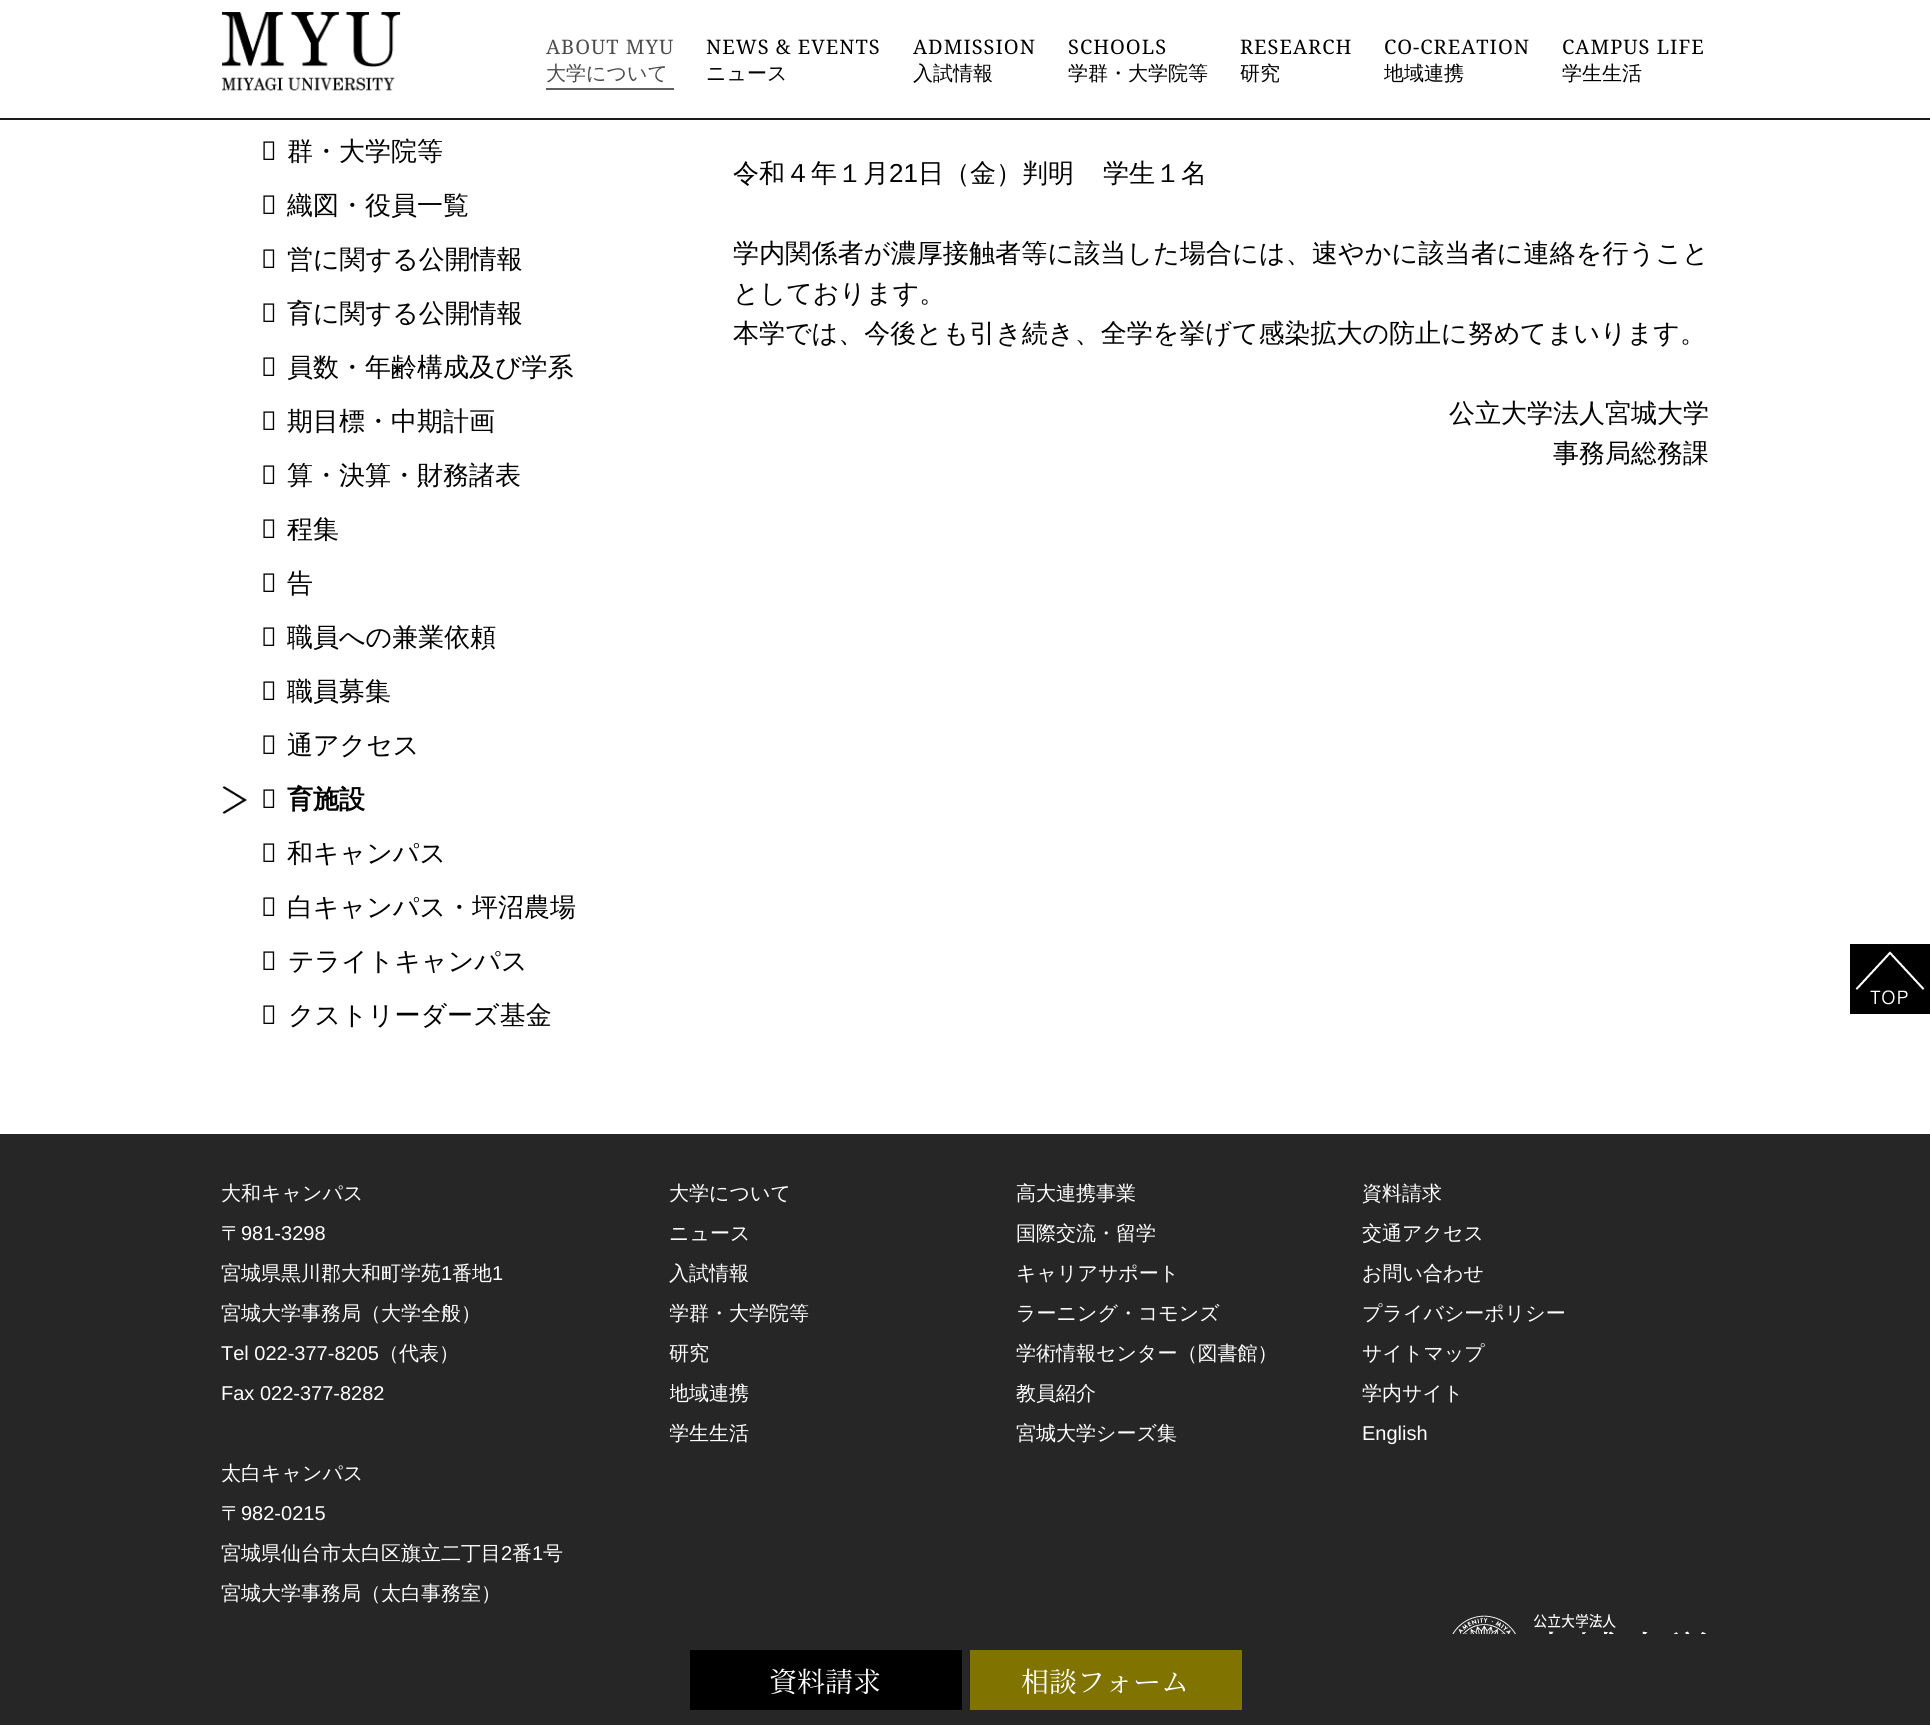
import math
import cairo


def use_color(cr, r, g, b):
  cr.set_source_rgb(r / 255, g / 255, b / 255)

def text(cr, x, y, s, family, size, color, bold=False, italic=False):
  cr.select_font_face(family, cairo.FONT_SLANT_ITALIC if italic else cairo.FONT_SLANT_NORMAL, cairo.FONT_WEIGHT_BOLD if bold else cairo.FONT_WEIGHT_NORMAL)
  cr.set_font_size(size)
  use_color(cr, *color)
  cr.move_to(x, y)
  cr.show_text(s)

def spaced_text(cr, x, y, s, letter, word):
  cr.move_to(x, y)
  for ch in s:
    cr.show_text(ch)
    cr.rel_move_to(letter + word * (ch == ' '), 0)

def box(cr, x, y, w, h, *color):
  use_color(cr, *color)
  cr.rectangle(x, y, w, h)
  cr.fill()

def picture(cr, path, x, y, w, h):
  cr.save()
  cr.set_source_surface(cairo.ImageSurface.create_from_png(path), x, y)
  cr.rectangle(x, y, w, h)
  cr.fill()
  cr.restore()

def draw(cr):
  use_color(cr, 38, 38, 38)
  cr.paint()
  box(cr, 0, 0, 1930, 118, 255, 255, 255)
  box(cr, 0, 118, 1930, 2, 26, 26, 26)
  picture(cr, "img_01.png", 222, 12, 179, 79)
  box(cr, 546, 88, 128, 2, 95, 95, 95)
  box(cr, 0, 120, 1930, 1014, 255, 255, 255)
  picture(cr, "img_02.png", 222, 786, 25, 28)
  picture(cr, "img_03.png", 1850, 944, 80, 70)
  picture(cr, "img_04.png", 1452, 1614, 254, 20)
  box(cr, 690, 1650, 272, 60, 0, 0, 0)
  box(cr, 970, 1650, 272, 60, 128, 115, 0)
  cr.select_font_face("Noto Serif")
  cr.set_font_size(20)
  use_color(cr, 77, 77, 77)
  spaced_text(cr, 546, 54, "ABOUT MYU", 1, 0)
  text(cr, 546, 80, "大学について", "WenQuanYi Zen Hei Medium", 20, (77, 77, 77))
  cr.select_font_face("Noto Serif")
  use_color(cr, 0, 0, 0)
  spaced_text(cr, 706, 54, "NEWS & EVENTS", 1, 0)
  text(cr, 706, 80, "ニュース", "WenQuanYi Zen Hei Medium", 20, (0, 0, 0))
  cr.select_font_face("Noto Serif")
  spaced_text(cr, 913, 54, "ADMISSION", 1, 0)
  text(cr, 913, 80, "入試情報", "WenQuanYi Zen Hei Medium", 20, (0, 0, 0))
  cr.select_font_face("Noto Serif")
  spaced_text(cr, 1068, 54, "SCHOOLS", 1, 0)
  text(cr, 1068, 80, "学群・大学院等", "WenQuanYi Zen Hei Medium", 20, (0, 0, 0))
  cr.select_font_face("Noto Serif")
  spaced_text(cr, 1240, 54, "RESEARCH", 1, 0)
  text(cr, 1240, 80, "研究", "WenQuanYi Zen Hei Medium", 20, (0, 0, 0))
  cr.select_font_face("Noto Serif")
  spaced_text(cr, 1384, 54, "CO-CREATION", 1, 0)
  text(cr, 1384, 80, "地域連携", "WenQuanYi Zen Hei Medium", 20, (0, 0, 0))
  cr.select_font_face("Noto Serif")
  spaced_text(cr, 1562, 54, "CAMPUS LIFE", 1, 0)
  text(cr, 1562, 80, "学生生活", "WenQuanYi Zen Hei Medium", 20, (0, 0, 0))
  text(cr, 261, 160, "学", "Noto Sans", 26, (0, 0, 0))
  text(cr, 287, 160, "群・大学院等", "WenQuanYi Zen Hei Medium", 26, (0, 0, 0))
  text(cr, 261, 214, "組", "Noto Sans", 26, (0, 0, 0))
  text(cr, 287, 214, "織図・役員一覧", "WenQuanYi Zen Hei Medium", 26, (0, 0, 0))
  text(cr, 261, 268, "運", "Noto Sans", 26, (0, 0, 0))
  text(cr, 287, 268, "営に関する公開情報", "WenQuanYi Zen Hei Medium", 26, (0, 0, 0))
  text(cr, 261, 322, "教", "Noto Sans", 26, (0, 0, 0))
  text(cr, 287, 322, "育に関する公開情報", "WenQuanYi Zen Hei Medium", 26, (0, 0, 0))
  text(cr, 261, 376, "教", "Noto Sans", 26, (0, 0, 0))
  text(cr, 287, 376, "員数・年齢構成及び学系", "WenQuanYi Zen Hei Medium", 26, (0, 0, 0))
  text(cr, 261, 430, "中", "Noto Sans", 26, (0, 0, 0))
  text(cr, 287, 430, "期目標・中期計画", "WenQuanYi Zen Hei Medium", 26, (0, 0, 0))
  text(cr, 261, 484, "予", "Noto Sans", 26, (0, 0, 0))
  text(cr, 287, 484, "算・決算・財務諸表", "WenQuanYi Zen Hei Medium", 26, (0, 0, 0))
  text(cr, 261, 538, "規", "Noto Sans", 26, (0, 0, 0))
  text(cr, 287, 538, "程集", "WenQuanYi Zen Hei Medium", 26, (0, 0, 0))
  text(cr, 261, 592, "公", "Noto Sans", 26, (0, 0, 0))
  text(cr, 287, 592, "告", "WenQuanYi Zen Hei Medium", 26, (0, 0, 0))
  text(cr, 261, 646, "教", "Noto Sans", 26, (0, 0, 0))
  text(cr, 287, 646, "職員への兼業依頼", "WenQuanYi Zen Hei Medium", 26, (0, 0, 0))
  text(cr, 261, 700, "教", "Noto Sans", 26, (0, 0, 0))
  text(cr, 287, 700, "職員募集", "WenQuanYi Zen Hei Medium", 26, (0, 0, 0))
  text(cr, 261, 754, "交", "Noto Sans", 26, (0, 0, 0))
  text(cr, 287, 754, "通アクセス", "WenQuanYi Zen Hei Medium", 26, (0, 0, 0))
  text(cr, 261, 808, "教", "Noto Sans Thin", 26, (0, 0, 0))
  text(cr, 287, 808, "育施設", "WenQuanYi Zen Hei", 26, (0, 0, 0), bold=True)
  text(cr, 261, 862, "大", "Noto Sans", 26, (0, 0, 0))
  text(cr, 287, 862, "和キャンパス", "WenQuanYi Zen Hei Medium", 26, (0, 0, 0))
  text(cr, 261, 916, "太", "Noto Sans", 26, (0, 0, 0))
  text(cr, 287, 916, "白キャンパス・坪沼農場", "WenQuanYi Zen Hei Medium", 26, (0, 0, 0))
  text(cr, 261, 970, "サ", "Noto Sans", 26, (0, 0, 0))
  text(cr, 288, 970, "テライトキャンパス", "WenQuanYi Zen Hei Medium", 26, (0, 0, 0))
  text(cr, 261, 1024, "ネ", "Noto Sans", 26, (0, 0, 0))
  text(cr, 288, 1024, "クストリーダーズ基金", "WenQuanYi Zen Hei Medium", 26, (0, 0, 0))
  text(cr, 733, 182, "令和４年１月", "WenQuanYi Zen Hei Medium", 26, (0, 0, 0))
  text(cr, 889, 182, "21", "Liberation Sans", 26, (0, 0, 0))
  text(cr, 918, 182, "日（金）判明", "WenQuanYi Zen Hei Medium", 26, (0, 0, 0))
  text(cr, 1103, 182, "学生１名", "WenQuanYi Zen Hei Medium", 26, (0, 0, 0))
  spaced_text(cr, 733, 262, "学内関係者が濃厚接触者等に該当した場合には、速やかに該当者に連絡を行うこと", 0.15, 0)
  text(cr, 733, 302, "としております。", "WenQuanYi Zen Hei Medium", 26, (0, 0, 0))
  text(cr, 733, 342, "本学では、今後とも引き続き、全学を挙げて感染拡大の防止に努めてまいります。", "WenQuanYi Zen Hei Medium", 26, (0, 0, 0))
  text(cr, 1449, 422, "公立大学法人宮城大学", "WenQuanYi Zen Hei Medium", 26, (0, 0, 0))
  text(cr, 1553, 462, "事務局総務課", "WenQuanYi Zen Hei Medium", 26, (0, 0, 0))
  text(cr, 221, 1200, "大和キャンパス", "WenQuanYi Zen Hei Medium", 20, (255, 255, 255))
  text(cr, 221, 1240, "〒", "WenQuanYi Zen Hei Medium", 20, (255, 255, 255))
  text(cr, 241, 1240, "981-3298", "Liberation Sans", 20, (255, 255, 255))
  text(cr, 221, 1280, "宮城県黒川郡大和町学苑", "WenQuanYi Zen Hei Medium", 20, (255, 255, 255))
  text(cr, 441, 1280, "1", "Liberation Sans", 20, (255, 255, 255))
  text(cr, 452, 1280, "番地", "WenQuanYi Zen Hei Medium", 20, (255, 255, 255))
  text(cr, 492, 1280, "1", "Liberation Sans", 20, (255, 255, 255))
  text(cr, 221, 1320, "宮城大学事務局（大学全般）", "WenQuanYi Zen Hei Medium", 20, (255, 255, 255))
  text(cr, 221, 1360, "Tel 022-377-8205", "Liberation Sans", 20, (255, 255, 255))
  text(cr, 379, 1360, "（代表）", "WenQuanYi Zen Hei Medium", 20, (255, 255, 255))
  text(cr, 221, 1400, "Fax 022-377-8282", "Liberation Sans", 20, (255, 255, 255))
  text(cr, 221, 1480, "太白キャンパス", "WenQuanYi Zen Hei Medium", 20, (255, 255, 255))
  text(cr, 221, 1520, "〒", "WenQuanYi Zen Hei Medium", 20, (255, 255, 255))
  text(cr, 241, 1520, "982-0215", "Liberation Sans", 20, (255, 255, 255))
  text(cr, 221, 1560, "宮城県仙台市太白区旗立二丁目", "WenQuanYi Zen Hei Medium", 20, (255, 255, 255))
  text(cr, 501, 1560, "2", "Liberation Sans", 20, (255, 255, 255))
  text(cr, 512, 1560, "番", "WenQuanYi Zen Hei Medium", 20, (255, 255, 255))
  text(cr, 532, 1560, "1", "Liberation Sans", 20, (255, 255, 255))
  text(cr, 543, 1560, "号", "WenQuanYi Zen Hei Medium", 20, (255, 255, 255))
  text(cr, 221, 1600, "宮城大学事務局（太白事務室）", "WenQuanYi Zen Hei Medium", 20, (255, 255, 255))
  text(cr, 669, 1200, "大学について", "WenQuanYi Zen Hei Medium", 20, (255, 255, 255))
  text(cr, 669, 1240, "ニュース", "WenQuanYi Zen Hei Medium", 20, (255, 255, 255))
  text(cr, 669, 1280, "入試情報", "WenQuanYi Zen Hei Medium", 20, (255, 255, 255))
  cr.save()
  cr.rectangle(670, 1174, 1040, 280)
  cr.clip()
  text(cr, 669, 1320, "学群・大学院等", "WenQuanYi Zen Hei Medium", 20, (255, 255, 255))
  cr.restore()
  text(cr, 669, 1360, "研究", "WenQuanYi Zen Hei Medium", 20, (255, 255, 255))
  cr.save()
  cr.rectangle(670, 1174, 1040, 280)
  cr.clip()
  text(cr, 669, 1400, "地域連携", "WenQuanYi Zen Hei Medium", 20, (255, 255, 255))
  text(cr, 669, 1440, "学生生活", "WenQuanYi Zen Hei Medium", 20, (255, 255, 255))
  cr.restore()
  text(cr, 1016, 1200, "高大連携事業", "WenQuanYi Zen Hei Medium", 20, (255, 255, 255))
  text(cr, 1016, 1240, "国際交流・留学", "WenQuanYi Zen Hei Medium", 20, (255, 255, 255))
  text(cr, 1016, 1280, "キャリアサポート", "WenQuanYi Zen Hei Medium", 20, (255, 255, 255))
  text(cr, 1016, 1320, "ラーニング・コモンズ", "WenQuanYi Zen Hei Medium", 20, (255, 255, 255))
  text(cr, 1016, 1360, "学術情報センター（図書館）", "WenQuanYi Zen Hei Medium", 20, (255, 255, 255))
  text(cr, 1016, 1400, "教員紹介", "WenQuanYi Zen Hei Medium", 20, (255, 255, 255))
  text(cr, 1016, 1440, "宮城大学シーズ集", "WenQuanYi Zen Hei Medium", 20, (255, 255, 255))
  text(cr, 1362, 1200, "資料請求", "WenQuanYi Zen Hei Medium", 20, (255, 255, 255))
  text(cr, 1362, 1240, "交通アクセス", "WenQuanYi Zen Hei Medium", 20, (255, 255, 255))
  text(cr, 1362, 1280, "お問い合わせ", "WenQuanYi Zen Hei Medium", 20, (255, 255, 255))
  text(cr, 1362, 1320, "プライバシーポリシー", "WenQuanYi Zen Hei Medium", 20, (255, 255, 255))
  text(cr, 1362, 1360, "サイトマップ", "WenQuanYi Zen Hei Medium", 20, (255, 255, 255))
  text(cr, 1362, 1400, "学内サイト", "WenQuanYi Zen Hei Medium", 20, (255, 255, 255))
  text(cr, 1362, 1440, "English", "Liberation Sans", 20, (255, 255, 255))
  text(cr, 769, 1692, "資料請求", "Noto Serif JP", 28, (255, 255, 255))
  text(cr, 1021, 1692, "相談フォーム", "Noto Serif JP", 28, (255, 255, 255))


surface = cairo.ImageSurface(cairo.FORMAT_RGB24, 1930, 1725)
cr = cairo.Context(surface)
options = cairo.FontOptions()
options.set_hint_metrics(cairo.HINT_METRICS_OFF)
options.set_hint_style(cairo.HINT_STYLE_NONE)
cr.set_font_options(options)
cr.set_miter_limit(4)
draw(cr)
surface.write_to_png("out.png")
